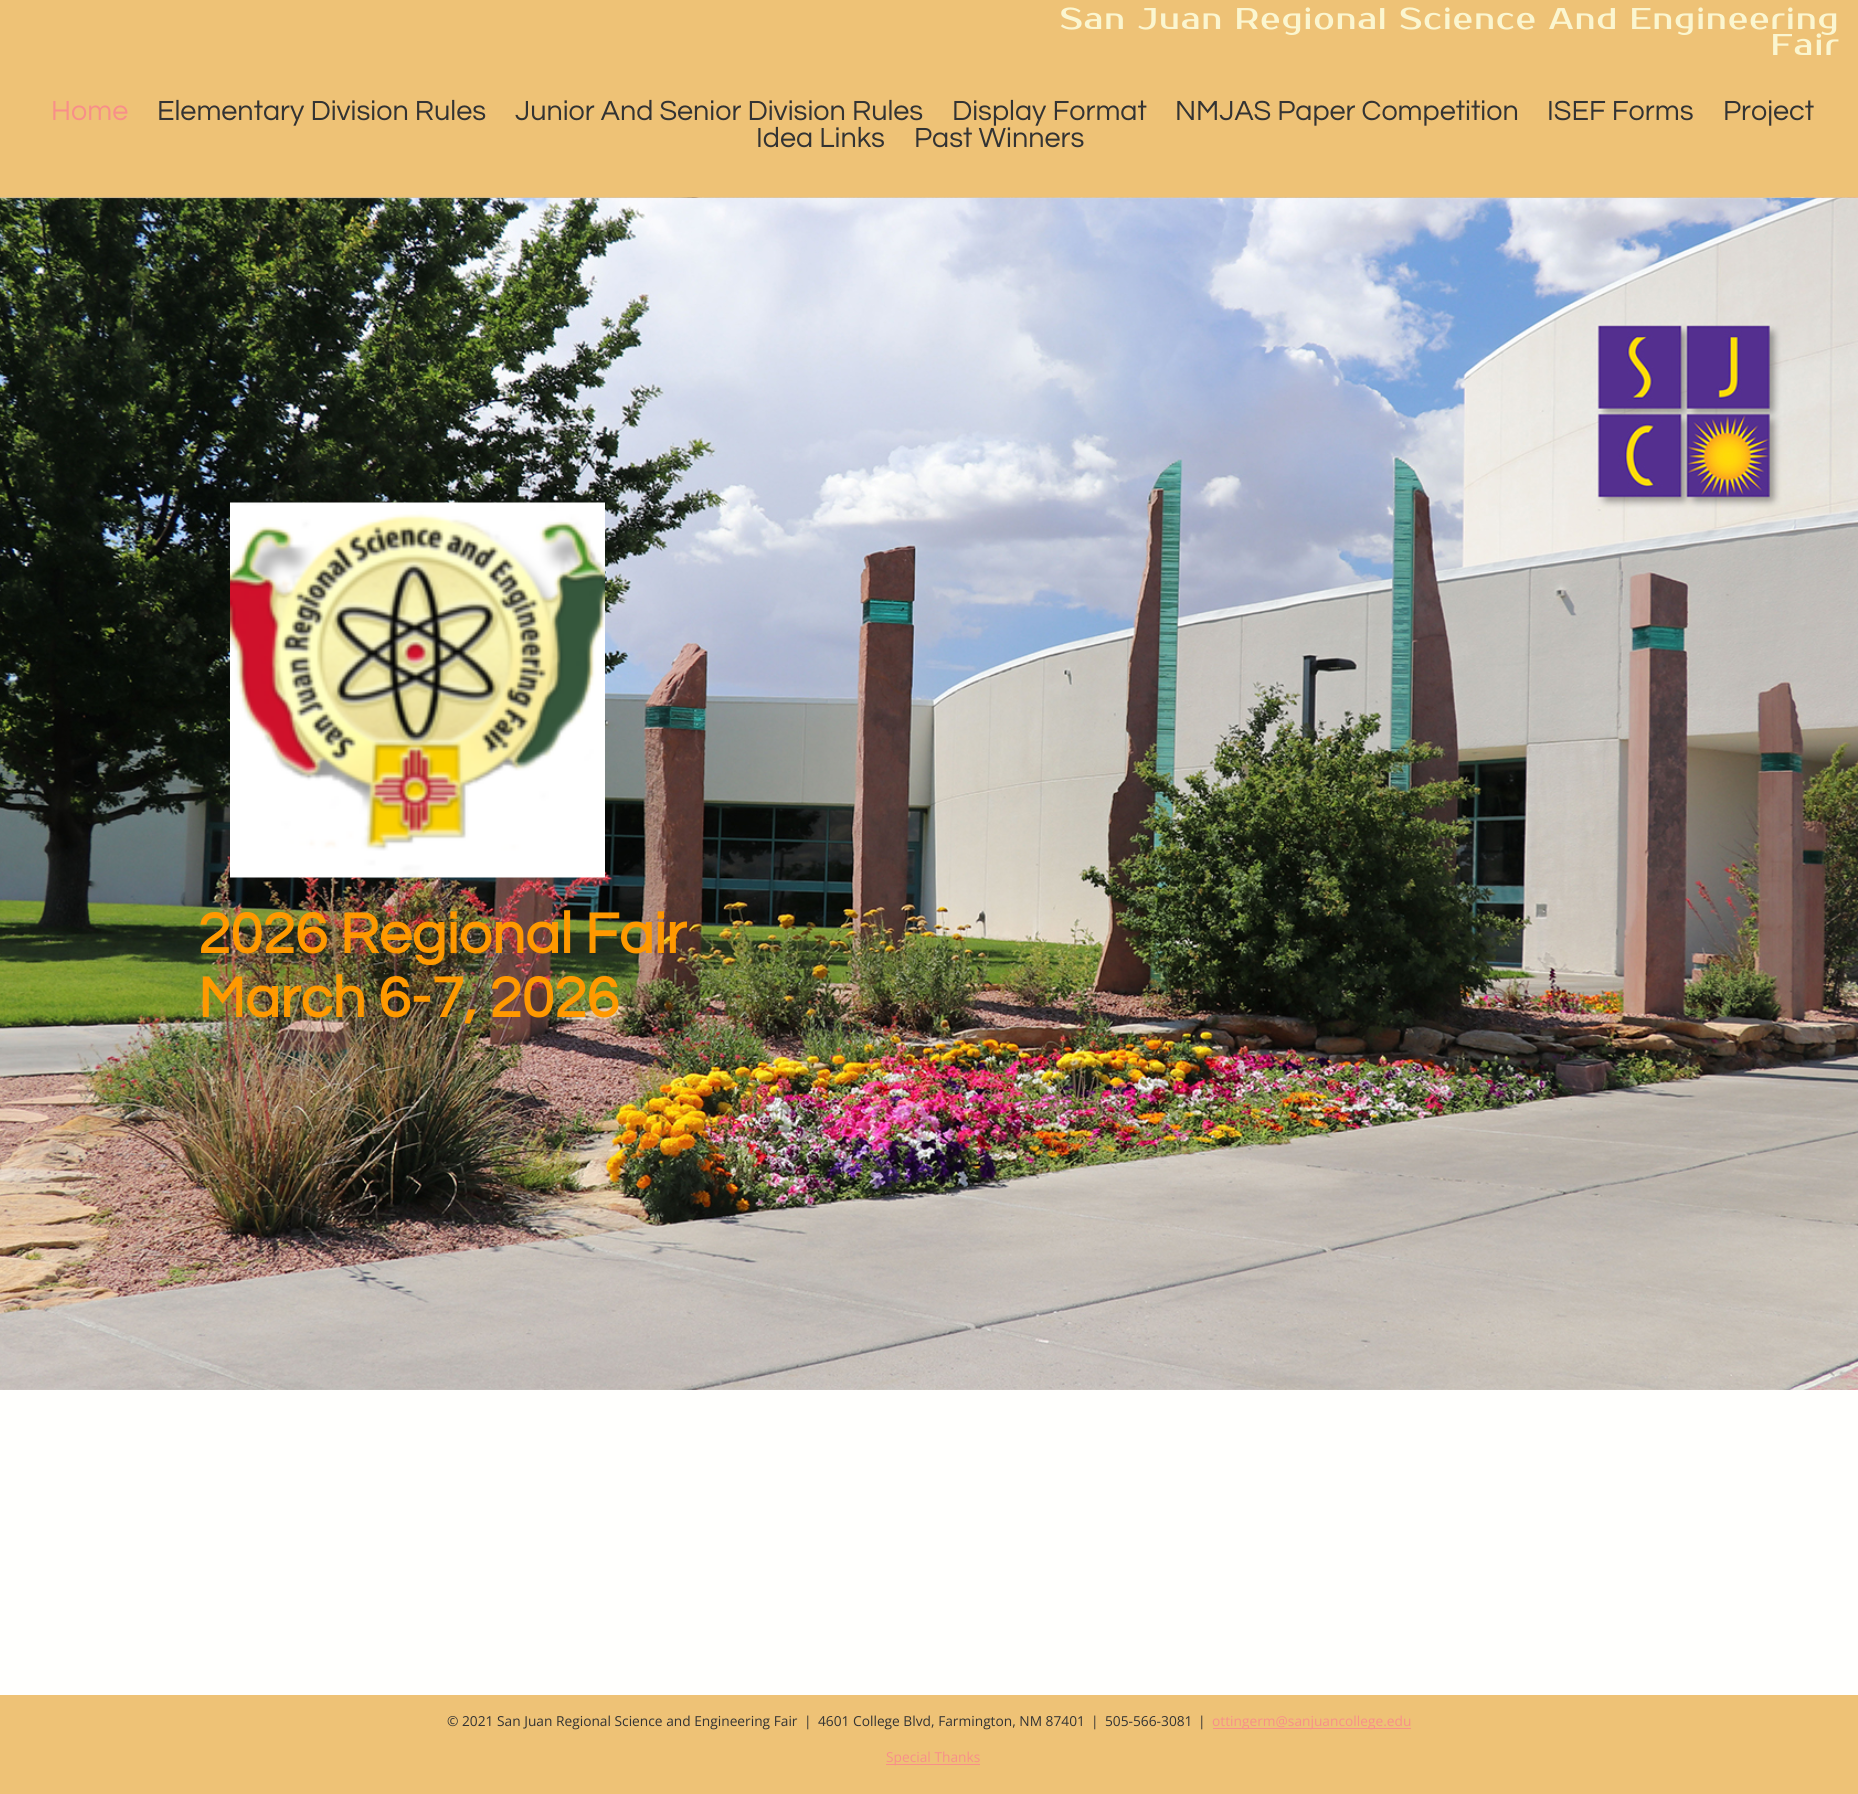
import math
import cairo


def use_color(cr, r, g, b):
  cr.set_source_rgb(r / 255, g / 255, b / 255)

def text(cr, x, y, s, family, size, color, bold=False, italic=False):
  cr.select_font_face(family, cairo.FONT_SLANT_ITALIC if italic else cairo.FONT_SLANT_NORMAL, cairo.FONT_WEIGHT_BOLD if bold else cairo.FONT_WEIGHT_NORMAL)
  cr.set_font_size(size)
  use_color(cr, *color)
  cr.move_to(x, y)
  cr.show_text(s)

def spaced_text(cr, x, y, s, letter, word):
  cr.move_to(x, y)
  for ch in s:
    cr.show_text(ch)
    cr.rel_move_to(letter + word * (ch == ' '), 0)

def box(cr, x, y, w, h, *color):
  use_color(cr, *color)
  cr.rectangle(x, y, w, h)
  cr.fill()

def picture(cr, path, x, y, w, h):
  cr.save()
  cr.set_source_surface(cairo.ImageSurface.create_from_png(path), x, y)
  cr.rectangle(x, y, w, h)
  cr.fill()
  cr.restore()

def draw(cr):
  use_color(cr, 255, 255, 253)
  cr.paint()
  box(cr, 0, 0, 1858, 198, 238, 194, 118)
  picture(cr, "img_01.png", 0, 197, 1858, 1193)
  picture(cr, "img_02.png", 230, 502, 375, 376)
  box(cr, 0, 1695, 1858, 99, 238, 194, 118)
  box(cr, 1213, 1728, 198, 1, 248, 143, 137)
  box(cr, 886, 1764, 94, 1, 248, 143, 137)
  cr.select_font_face("Prosto One")
  cr.set_font_size(30)
  use_color(cr, 251, 246, 208)
  spaced_text(cr, 1060, 29, "San Juan Regional Science And Engineering", 1.25, 0)
  spaced_text(cr, 1771, 55, "Fair", 1.25, 0)
  text(cr, 51, 120, "Home", "Questrial", 28.75, (248, 143, 137))
  text(cr, 157, 120, "Elementary Division Rules", "Questrial", 28.75, (51, 51, 51))
  text(cr, 515, 120, "Junior And Senior Division Rules", "Questrial", 28.75, (51, 51, 51))
  text(cr, 952, 120, "Display Format", "Questrial", 28.75, (51, 51, 51))
  text(cr, 1175, 120, "NMJAS Paper Competition", "Questrial", 28.75, (51, 51, 51))
  text(cr, 1547, 120, "ISEF Forms", "Questrial", 28.75, (51, 51, 51))
  text(cr, 1723, 120, "Project", "Questrial", 28.75, (51, 51, 51))
  text(cr, 756, 147, "Idea Links", "Questrial", 28.75, (51, 51, 51))
  text(cr, 914, 147, "Past Winners", "Questrial", 28.75, (51, 51, 51))
  text(cr, 198, 953, "2026 Regional Fair", "Questrial", 58.75, (255, 153, 0), bold=True)
  text(cr, 198, 1017, "March 6-7, 2026", "Questrial", 58.75, (255, 153, 0), bold=True)
  text(cr, 447, 1726, "© 2021 San Juan Regional Science and Engineering Fair", "Open Sans", 13.75, (51, 51, 51))
  text(cr, 804, 1726, "|", "Open Sans", 13.75, (51, 51, 51))
  text(cr, 818, 1726, "4601 College Blvd, Farmington, NM 87401", "Open Sans", 13.75, (51, 51, 51))
  text(cr, 1091, 1726, "|", "Open Sans", 13.75, (51, 51, 51))
  text(cr, 1105, 1726, "505-566-3081", "Open Sans", 13.75, (51, 51, 51))
  text(cr, 1198, 1726, "|", "Open Sans", 13.75, (51, 51, 51))
  text(cr, 1212, 1726, "ottingerm@sanjuancollege.edu", "Open Sans", 13.75, (248, 143, 137))
  text(cr, 886, 1762, "Special Thanks", "Open Sans", 13.75, (248, 143, 137))


surface = cairo.ImageSurface(cairo.FORMAT_RGB24, 1858, 1794)
cr = cairo.Context(surface)
options = cairo.FontOptions()
options.set_hint_metrics(cairo.HINT_METRICS_OFF)
options.set_hint_style(cairo.HINT_STYLE_NONE)
cr.set_font_options(options)
cr.set_miter_limit(4)
draw(cr)
surface.write_to_png("out.png")
